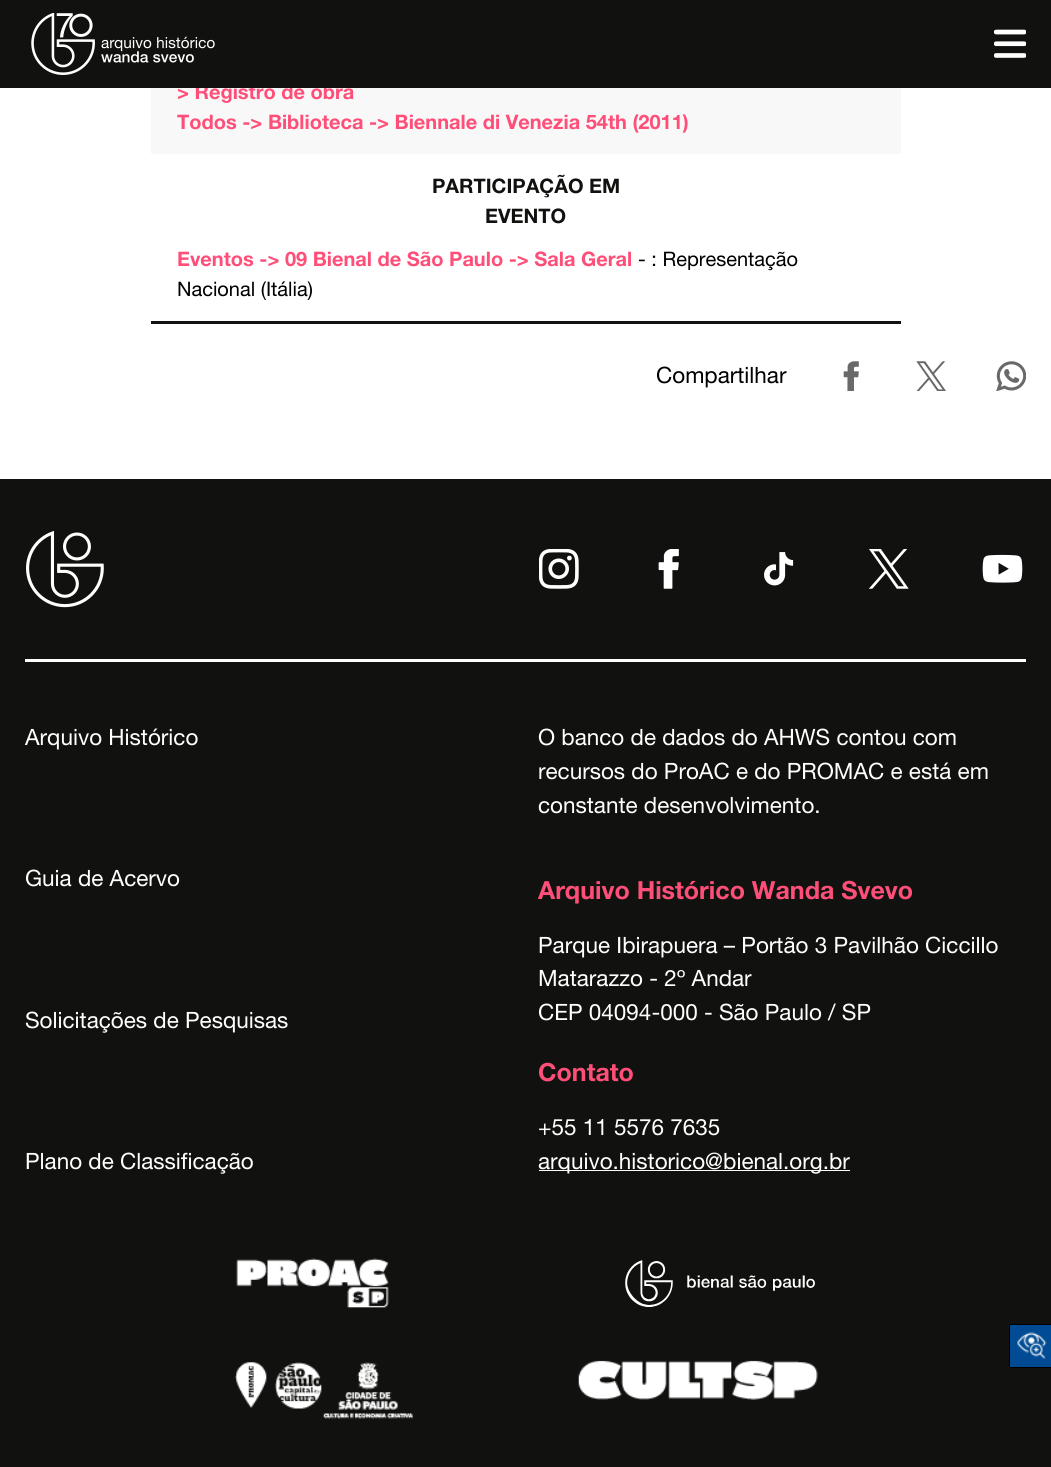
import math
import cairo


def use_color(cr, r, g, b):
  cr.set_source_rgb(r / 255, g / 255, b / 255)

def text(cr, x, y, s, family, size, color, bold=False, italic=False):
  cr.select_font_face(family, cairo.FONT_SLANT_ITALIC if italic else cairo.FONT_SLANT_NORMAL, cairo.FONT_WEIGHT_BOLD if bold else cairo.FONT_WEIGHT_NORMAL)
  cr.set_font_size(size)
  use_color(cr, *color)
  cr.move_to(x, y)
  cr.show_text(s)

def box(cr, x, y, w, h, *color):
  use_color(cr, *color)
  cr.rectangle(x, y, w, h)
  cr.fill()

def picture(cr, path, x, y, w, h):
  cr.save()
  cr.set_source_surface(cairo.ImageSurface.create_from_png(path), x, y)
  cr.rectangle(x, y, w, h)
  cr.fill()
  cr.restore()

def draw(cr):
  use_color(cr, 255, 255, 255)
  cr.paint()
  box(cr, 151, 321, 750, 3, 17, 18, 15)
  box(cr, 151, 88, 750, 66, 248, 248, 248)
  picture(cr, "img_03.png", 843, 361, 16, 30)
  picture(cr, "img_04.png", 916, 361, 30, 30)
  picture(cr, "img_05.png", 996, 361, 30, 30)
  box(cr, 0, 479, 1051, 988, 17, 18, 15)
  picture(cr, "img_06.png", 26, 530, 78, 78)
  picture(cr, "img_07.png", 539, 549, 40, 40)
  picture(cr, "img_08.png", 658, 549, 21, 40)
  picture(cr, "img_09.png", 764, 552, 30, 34)
  picture(cr, "img_10.png", 869, 549, 40, 40)
  picture(cr, "img_11.png", 982, 554, 41, 29)
  box(cr, 25, 659, 1001, 3, 255, 255, 255)
  box(cr, 539, 1170, 311, 1, 255, 255, 255)
  picture(cr, "img_12.png", 236, 1258, 153, 50)
  picture(cr, "img_13.png", 625, 1260, 190, 47)
  picture(cr, "img_14.png", 235, 1362, 179, 57)
  picture(cr, "img_15.png", 578, 1360, 240, 40)
  use_color(cr, 0, 75, 147)
  cr.rectangle(1009.5, 1324.5, 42, 43)
  cr.fill_preserve()
  use_color(cr, 0, 0, 0)
  cr.set_line_width(1)
  cr.stroke()
  picture(cr, "img_16.png", 1017, 1332, 30, 27)
  text(cr, 177, 99, "> Registro de obra", "Helvetica Neue", 20, (255, 78, 120), bold=True)
  box(cr, 0, 0, 1051, 88, 17, 18, 15)
  picture(cr, "img_02.png", 994, 29, 32, 29)
  picture(cr, "img_01.png", 31, 13, 184, 62)
  text(cr, 177, 129, "Todos -> Biblioteca -> Biennale di Venezia 54th (2011)", "Helvetica Neue", 20, (255, 78, 120), bold=True)
  text(cr, 432, 193, "PARTICIPAÇÃO EM", "Helvetica Neue", 20, (17, 18, 15), bold=True)
  text(cr, 485, 223, "EVENTO", "Helvetica Neue", 20, (17, 18, 15), bold=True)
  text(cr, 177, 266, "Eventos -> 09 Bienal de São Paulo -> Sala Geral", "Helvetica Neue", 20, (255, 78, 120), bold=True)
  text(cr, 638, 266, "- : Representação", "Helvetica Neue", 20, (0, 0, 0))
  text(cr, 177, 296, "Nacional (Itália)", "Helvetica Neue", 20, (0, 0, 0))
  text(cr, 656, 383, "Compartilhar", "Helvetica Neue", 22.5, (0, 0, 0))
  text(cr, 25, 745, "Arquivo Histórico", "Helvetica Neue", 22.5, (255, 255, 255))
  text(cr, 25, 886, "Guia de Acervo", "Helvetica Neue", 22.5, (255, 255, 255))
  text(cr, 25, 1028, "Solicitações de Pesquisas", "Helvetica Neue", 22.5, (255, 255, 255))
  text(cr, 25, 1169, "Plano de Classificação", "Helvetica Neue", 22.5, (255, 255, 255))
  text(cr, 538, 745, "O banco de dados do AHWS contou com", "Helvetica Neue", 22.5, (255, 255, 255))
  text(cr, 538, 779, "recursos do ProAC e do PROMAC e está em", "Helvetica Neue", 22.5, (255, 255, 255))
  text(cr, 538, 813, "constante desenvolvimento.", "Helvetica Neue", 22.5, (255, 255, 255))
  text(cr, 538, 899, "Arquivo Histórico Wanda Svevo", "Helvetica Neue", 25, (255, 78, 120), bold=True)
  text(cr, 538, 953, "Parque Ibirapuera – Portão 3 Pavilhão Ciccillo", "Helvetica Neue", 22.5, (255, 255, 255))
  text(cr, 538, 986, "Matarazzo - 2º Andar", "Helvetica Neue", 22.5, (255, 255, 255))
  text(cr, 538, 1020, "CEP 04094-000 - São Paulo / SP", "Helvetica Neue", 22.5, (255, 255, 255))
  text(cr, 538, 1081, "Contato", "Helvetica Neue", 25, (255, 78, 120), bold=True)
  text(cr, 538, 1135, "+55 11 5576 7635", "Helvetica Neue", 22.5, (255, 255, 255))
  text(cr, 538, 1169, "arquivo.historico@bienal.org.br", "Helvetica Neue", 22.5, (255, 255, 255))


surface = cairo.ImageSurface(cairo.FORMAT_RGB24, 1051, 1467)
cr = cairo.Context(surface)
options = cairo.FontOptions()
options.set_hint_metrics(cairo.HINT_METRICS_OFF)
options.set_hint_style(cairo.HINT_STYLE_NONE)
cr.set_font_options(options)
cr.set_miter_limit(4)
draw(cr)
surface.write_to_png("out.png")
